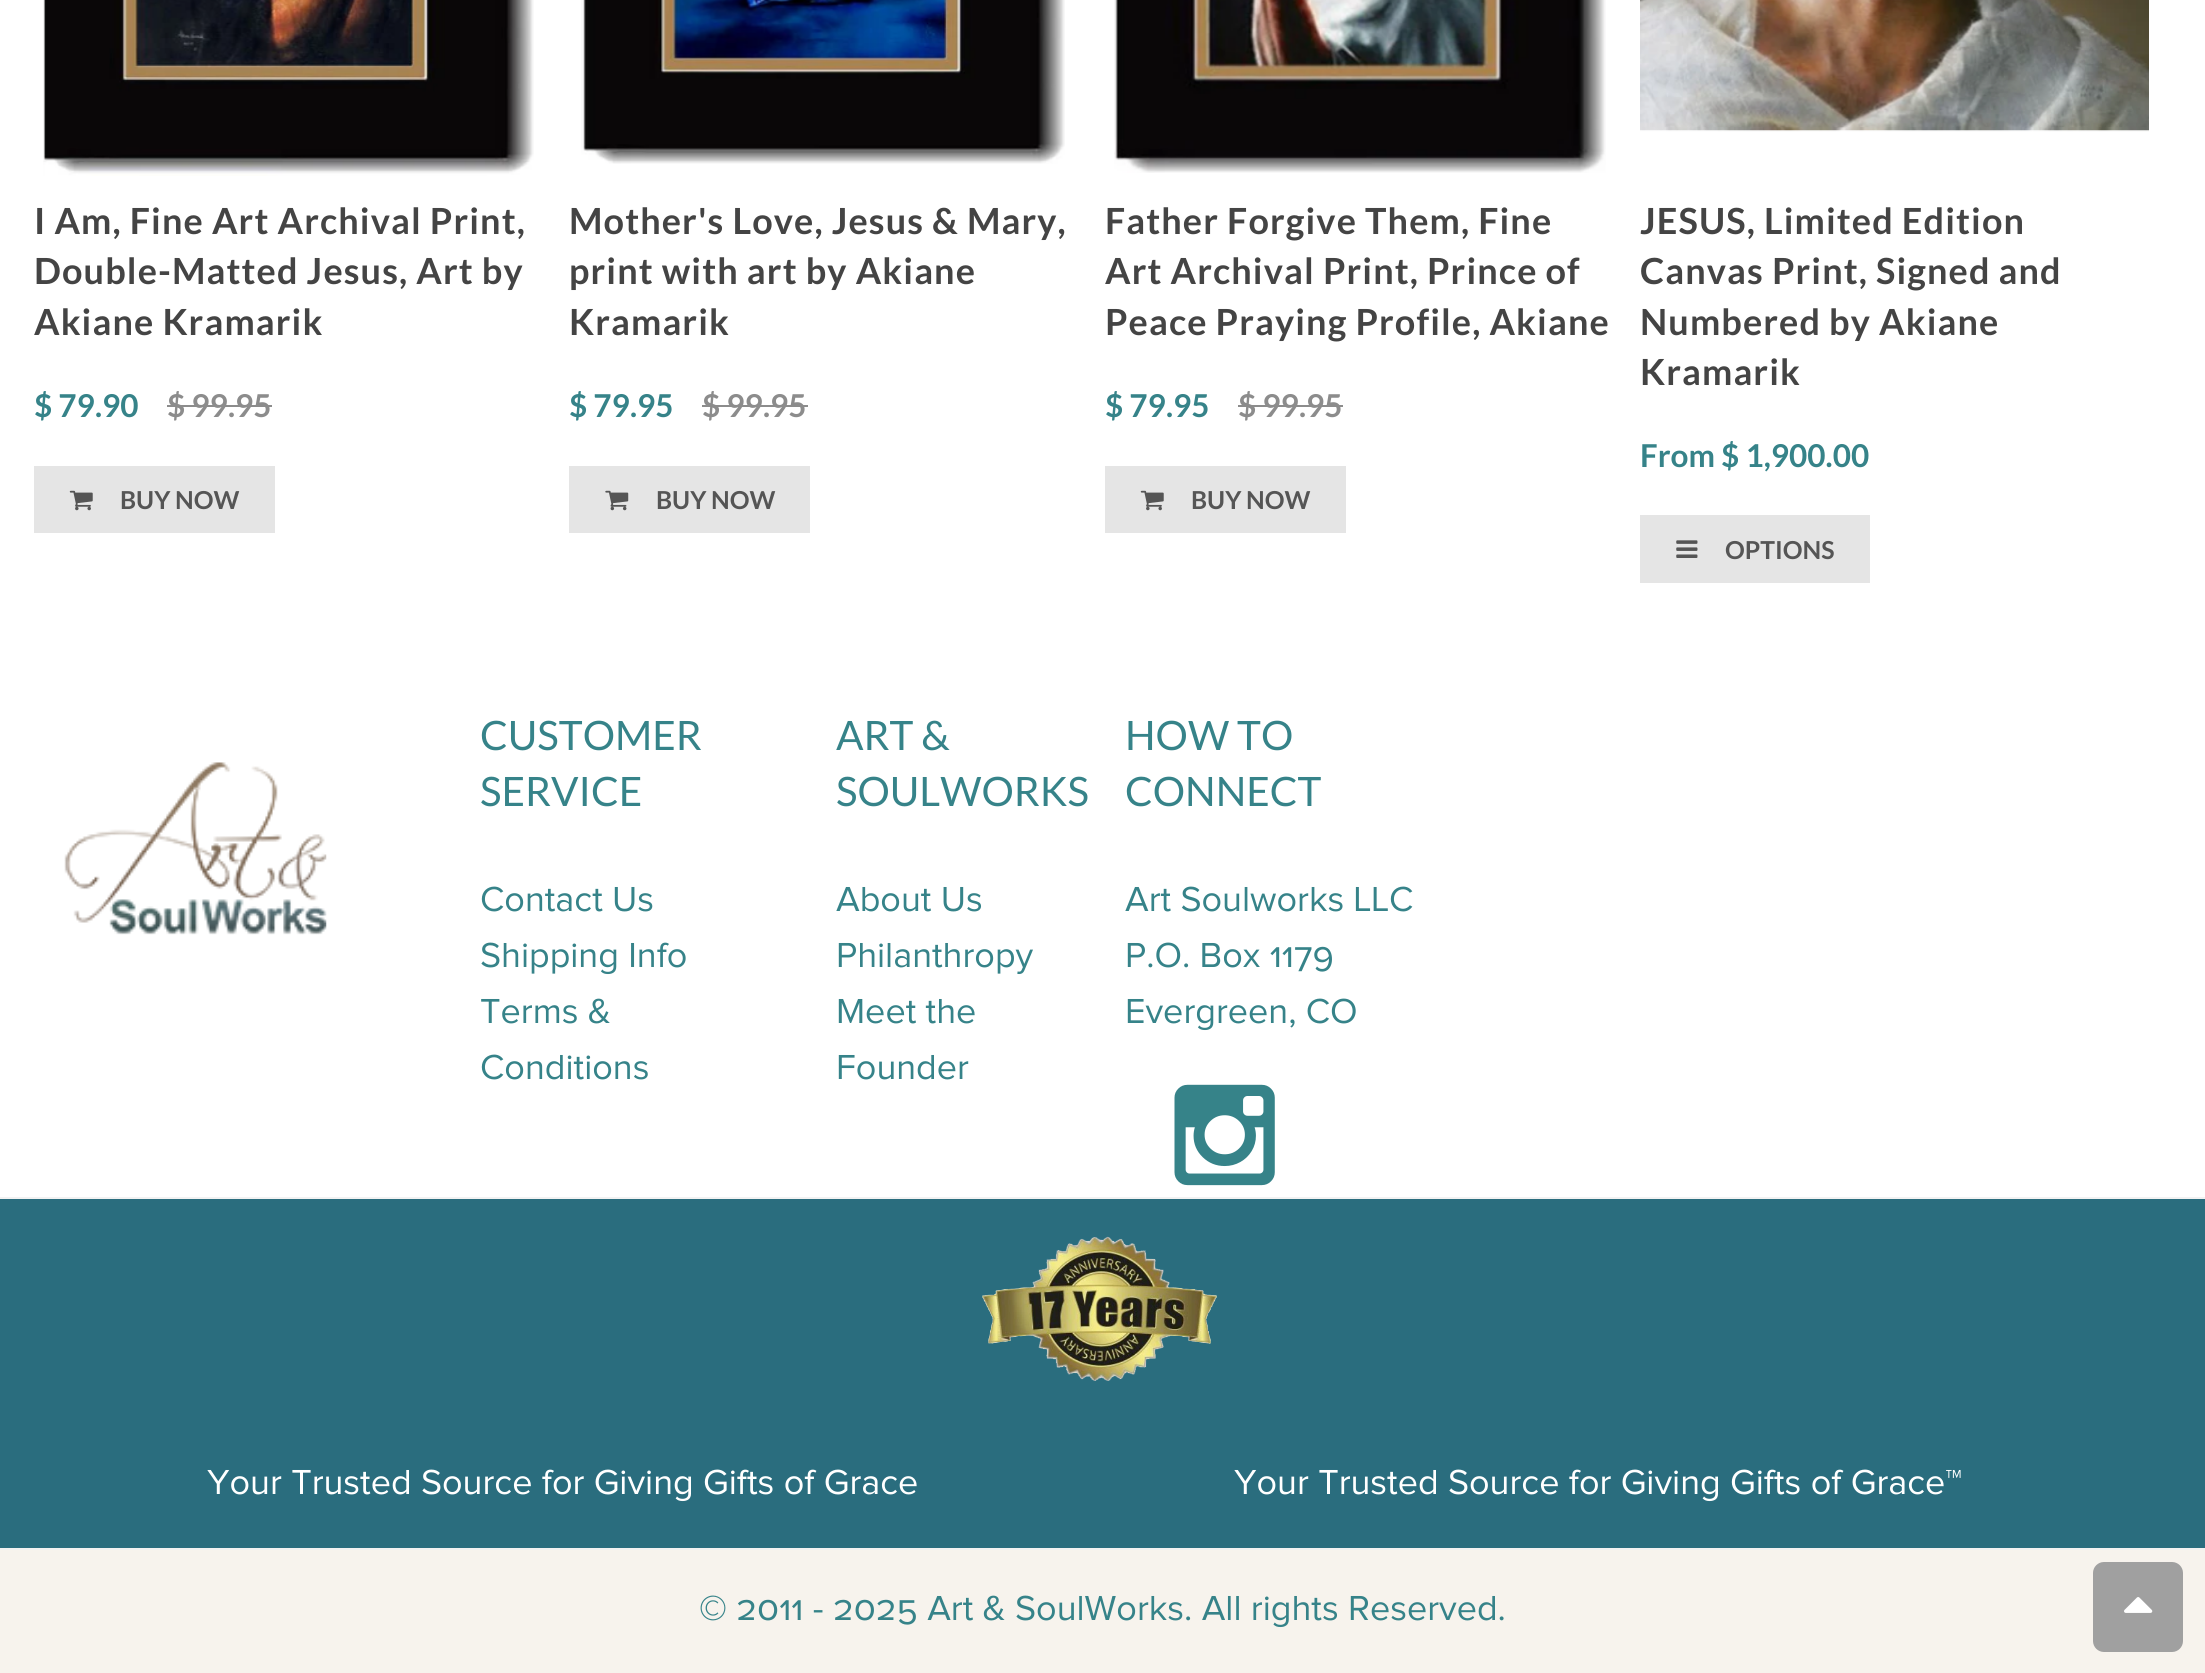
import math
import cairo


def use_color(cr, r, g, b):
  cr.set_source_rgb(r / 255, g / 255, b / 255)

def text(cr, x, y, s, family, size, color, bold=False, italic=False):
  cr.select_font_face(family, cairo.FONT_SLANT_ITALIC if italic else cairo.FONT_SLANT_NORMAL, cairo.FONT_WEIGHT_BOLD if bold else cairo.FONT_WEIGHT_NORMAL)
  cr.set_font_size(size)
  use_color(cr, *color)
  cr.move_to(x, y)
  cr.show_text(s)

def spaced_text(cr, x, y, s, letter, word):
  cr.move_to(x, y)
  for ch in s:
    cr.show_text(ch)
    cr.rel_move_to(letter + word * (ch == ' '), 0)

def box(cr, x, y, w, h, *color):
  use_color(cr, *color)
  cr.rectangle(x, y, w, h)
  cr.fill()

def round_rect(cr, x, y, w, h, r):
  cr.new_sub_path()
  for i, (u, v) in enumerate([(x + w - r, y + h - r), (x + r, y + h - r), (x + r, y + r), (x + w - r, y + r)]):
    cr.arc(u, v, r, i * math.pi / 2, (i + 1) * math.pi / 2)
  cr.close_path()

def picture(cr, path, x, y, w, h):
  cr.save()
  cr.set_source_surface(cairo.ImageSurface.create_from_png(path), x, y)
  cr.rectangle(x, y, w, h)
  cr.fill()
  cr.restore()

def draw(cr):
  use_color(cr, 255, 255, 255)
  cr.paint()
  picture(cr, "img_01.png", 43, 0, 491, 176)
  box(cr, 167, 405, 105, 2, 140, 140, 140)
  box(cr, 34, 466, 241, 67, 229, 229, 229)
  picture(cr, "img_02.png", 69, 490, 24, 21)
  picture(cr, "img_03.png", 581, 0, 484, 164)
  box(cr, 702, 405, 106, 2, 140, 140, 140)
  box(cr, 569, 466, 241, 67, 229, 229, 229)
  picture(cr, "img_04.png", 605, 490, 24, 21)
  picture(cr, "img_05.png", 1114, 0, 492, 173)
  box(cr, 1238, 405, 105, 2, 140, 140, 140)
  box(cr, 1105, 466, 241, 67, 229, 229, 229)
  picture(cr, "img_02.png", 1140, 490, 24, 21)
  picture(cr, "img_06.png", 1640, 0, 509, 132)
  box(cr, 1640, 515, 230, 68, 229, 229, 229)
  picture(cr, "img_07.png", 1676, 540, 22, 18)
  box(cr, 0, 1550, 2205, 123, 247, 243, 237)
  picture(cr, "img_08.png", 64, 762, 263, 173)
  picture(cr, "img_09.png", 1174, 1084, 101, 102)
  box(cr, 0, 1199, 2205, 349, 42, 109, 126)
  box(cr, 0, 1197, 2205, 2, 242, 242, 242)
  picture(cr, "img_10.png", 982, 1236, 235, 145)
  box(cr, 0, 1548, 2205, 2, 242, 242, 242)
  use_color(cr, 160, 160, 160)
  round_rect(cr, 2093, 1562, 90, 90, 11)
  cr.fill()
  picture(cr, "img_11.png", 2124, 1597, 29, 16)
  cr.select_font_face("Lato", cairo.FONT_SLANT_NORMAL, cairo.FONT_WEIGHT_BOLD)
  cr.set_font_size(36)
  use_color(cr, 68, 68, 68)
  spaced_text(cr, 34, 234, "I Am, Fine Art Archival Print,", 1.1, 0)
  spaced_text(cr, 34, 284, "Double-Matted Jesus, Art by", 1.1, 0)
  spaced_text(cr, 34, 335, "Akiane Kramarik", 1.1, 0)
  text(cr, 34, 417, "$ 79.90", "Lato", 31.5, (54, 131, 137), bold=True)
  text(cr, 167, 417, "$ 99.95", "Lato", 31.5, (140, 140, 140), bold=True)
  text(cr, 120, 509, "BUY NOW", "Lato", 24.75, (85, 85, 85), bold=True)
  cr.set_font_size(36)
  use_color(cr, 68, 68, 68)
  spaced_text(cr, 569, 234, "Mother's Love, Jesus & Mary,", 1.1, 0)
  spaced_text(cr, 569, 284, "print with art by Akiane", 1.1, 0)
  spaced_text(cr, 569, 335, "Kramarik", 1.1, 0)
  text(cr, 569, 417, "$ 79.95", "Lato", 31.5, (54, 131, 137), bold=True)
  text(cr, 702, 417, "$ 99.95", "Lato", 31.5, (140, 140, 140), bold=True)
  text(cr, 656, 509, "BUY NOW", "Lato", 24.75, (85, 85, 85), bold=True)
  cr.set_font_size(36)
  use_color(cr, 68, 68, 68)
  spaced_text(cr, 1105, 234, "Father Forgive Them, Fine", 1.1, 0)
  spaced_text(cr, 1105, 284, "Art Archival Print, Prince of", 1.1, 0)
  spaced_text(cr, 1105, 335, "Peace Praying Profile, Akiane", 1.1, 0)
  text(cr, 1105, 417, "$ 79.95", "Lato", 31.5, (54, 131, 137), bold=True)
  text(cr, 1238, 417, "$ 99.95", "Lato", 31.5, (140, 140, 140), bold=True)
  text(cr, 1191, 509, "BUY NOW", "Lato", 24.75, (85, 85, 85), bold=True)
  cr.set_font_size(36)
  use_color(cr, 68, 68, 68)
  spaced_text(cr, 1640, 234, "JESUS, Limited Edition", 1.1, 0)
  spaced_text(cr, 1640, 284, "Canvas Print, Signed and", 1.1, 0)
  spaced_text(cr, 1640, 335, "Numbered by Akiane", 1.1, 0)
  spaced_text(cr, 1640, 385, "Kramarik", 1.1, 0)
  text(cr, 1640, 467, "From $ 1,900.00", "Lato", 31.5, (54, 131, 137), bold=True)
  text(cr, 1725, 559, "OPTIONS", "Lato", 24.75, (85, 85, 85), bold=True)
  text(cr, 480, 750, "CUSTOMER", "Lato", 40.5, (54, 131, 137))
  text(cr, 480, 806, "SERVICE", "Lato", 40.5, (54, 131, 137))
  text(cr, 480, 911, "Contact Us", "Proxima Nova", 36, (54, 131, 137))
  text(cr, 480, 967, "Shipping Info", "Proxima Nova", 36, (54, 131, 137))
  text(cr, 480, 1023, "Terms &", "Proxima Nova", 36, (54, 131, 137))
  text(cr, 480, 1079, "Conditions", "Proxima Nova", 36, (54, 131, 137))
  text(cr, 836, 750, "ART &", "Lato", 40.5, (54, 131, 137))
  text(cr, 836, 806, "SOULWORKS", "Lato", 40.5, (54, 131, 137))
  text(cr, 836, 911, "About Us", "Proxima Nova", 36, (54, 131, 137))
  text(cr, 836, 967, "Philanthropy", "Proxima Nova", 36, (54, 131, 137))
  text(cr, 836, 1023, "Meet the", "Proxima Nova", 36, (54, 131, 137))
  text(cr, 836, 1079, "Founder", "Proxima Nova", 36, (54, 131, 137))
  text(cr, 1125, 750, "HOW TO", "Lato", 40.5, (54, 131, 137))
  text(cr, 1125, 806, "CONNECT", "Lato", 40.5, (54, 131, 137))
  text(cr, 1125, 911, "Art Soulworks LLC", "Proxima Nova", 36, (54, 131, 137))
  text(cr, 1125, 967, "P.O. Box 1179", "Proxima Nova", 36, (54, 131, 137))
  text(cr, 1125, 1023, "Evergreen, CO", "Proxima Nova", 36, (54, 131, 137))
  text(cr, 207, 1494, "Your Trusted Source for Giving Gifts of Grace", "Proxima Nova", 36, (255, 255, 255))
  text(cr, 1234, 1494, "Your Trusted Source for Giving Gifts of Grace™", "Proxima Nova", 36, (255, 255, 255))
  text(cr, 699, 1620, "© 2011 - 2025 Art & SoulWorks. All rights Reserved.", "Proxima Nova", 36, (54, 131, 137))


surface = cairo.ImageSurface(cairo.FORMAT_RGB24, 2205, 1673)
cr = cairo.Context(surface)
options = cairo.FontOptions()
options.set_hint_metrics(cairo.HINT_METRICS_OFF)
options.set_hint_style(cairo.HINT_STYLE_NONE)
cr.set_font_options(options)
cr.set_miter_limit(4)
draw(cr)
surface.write_to_png("out.png")
